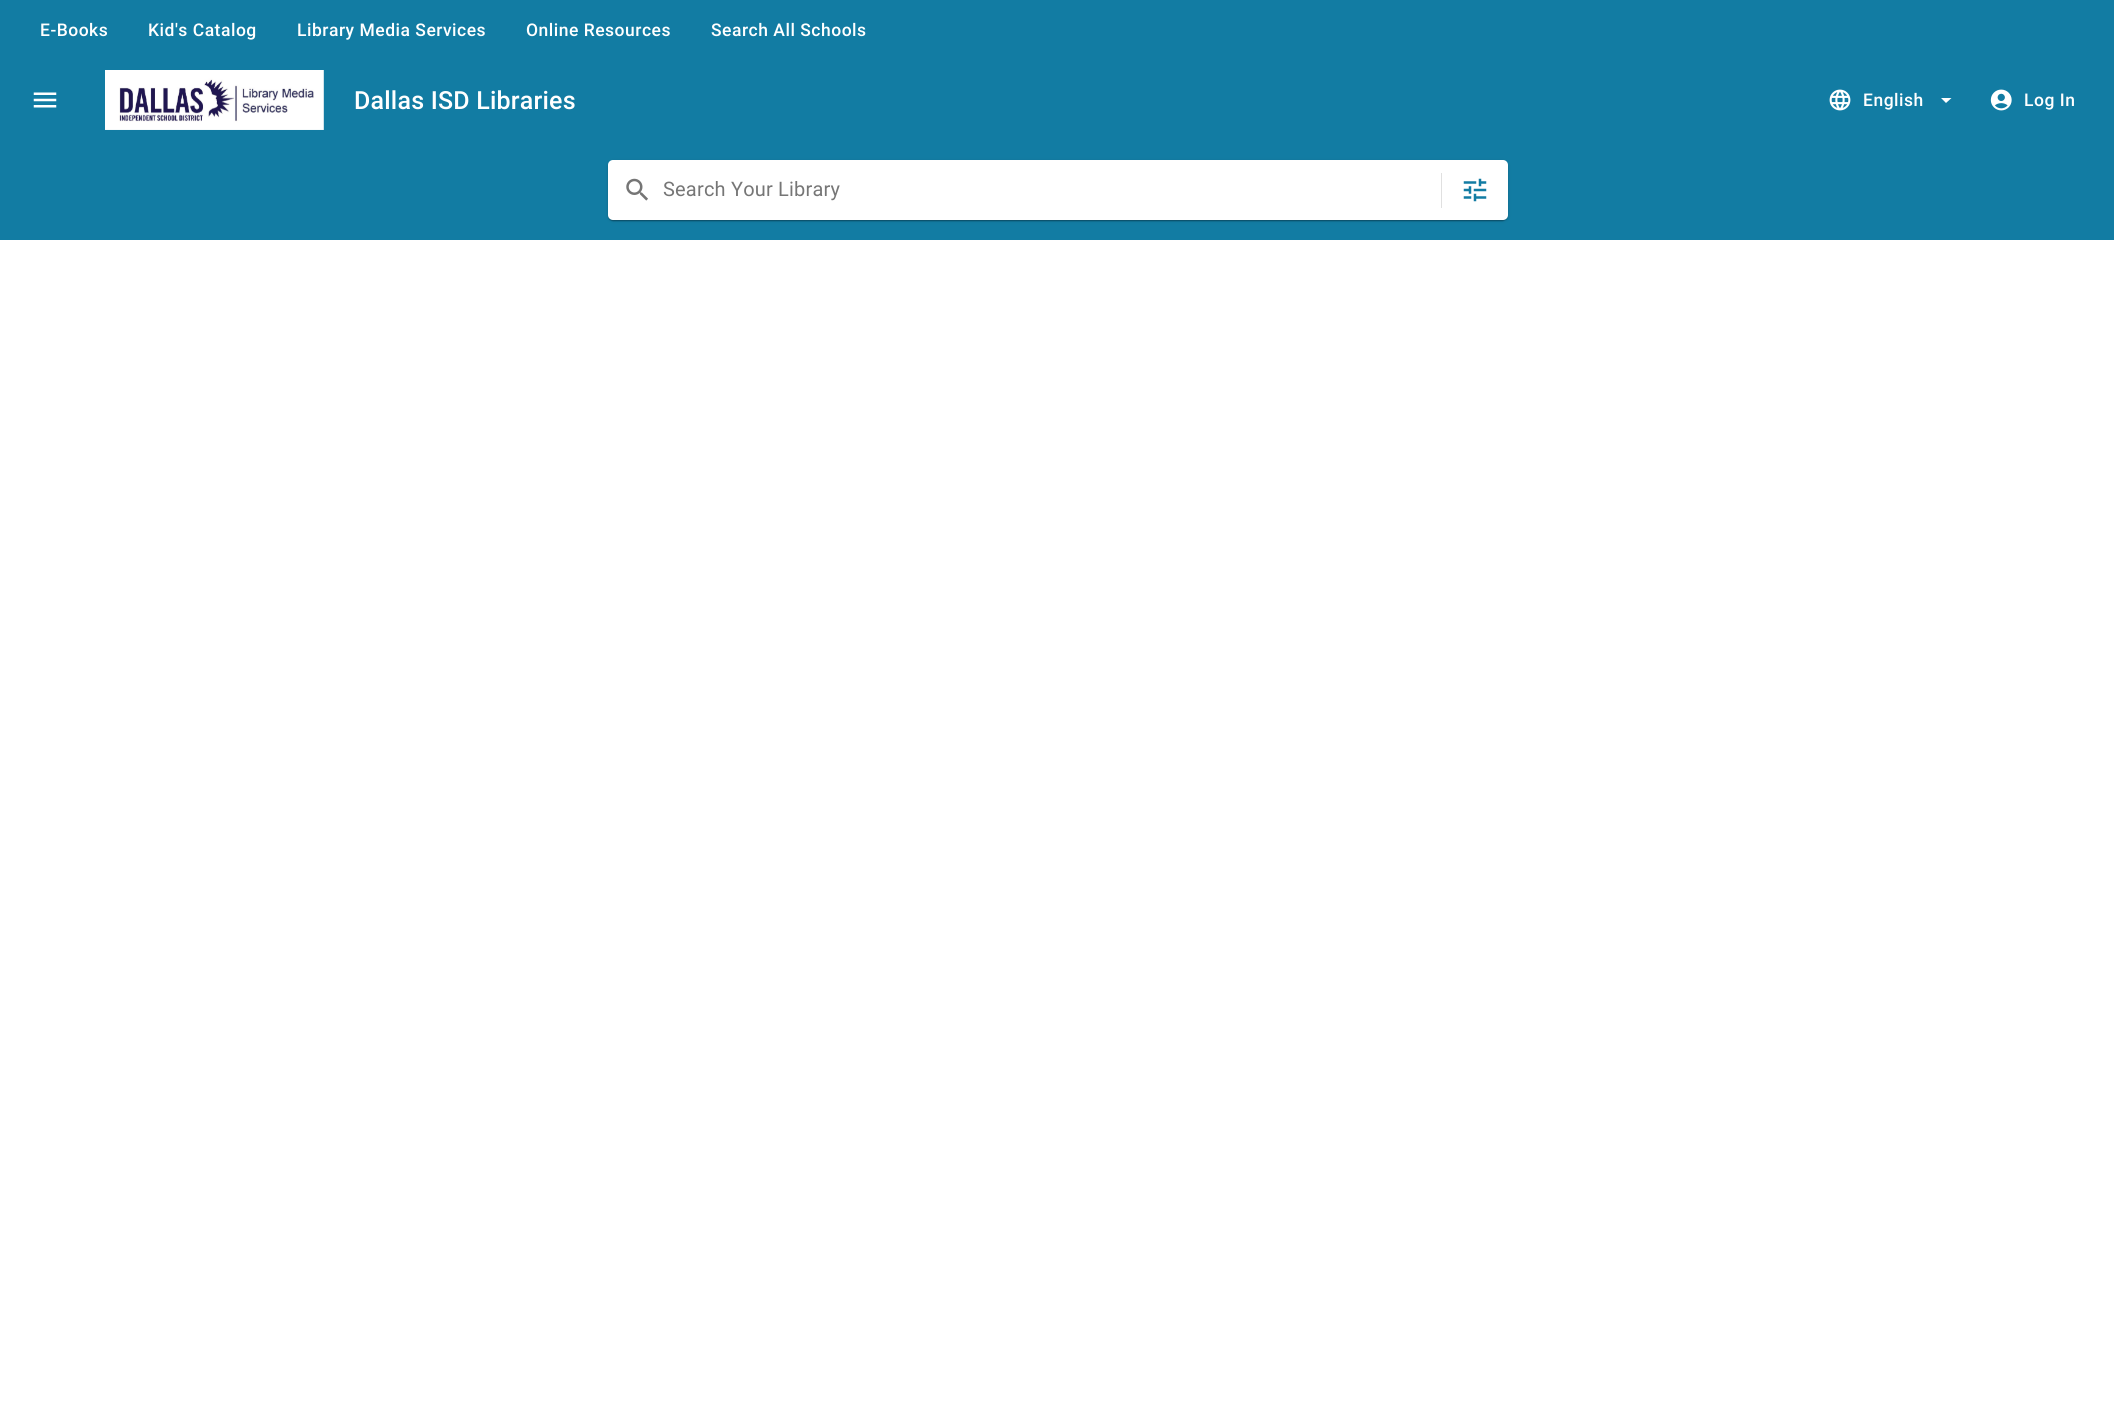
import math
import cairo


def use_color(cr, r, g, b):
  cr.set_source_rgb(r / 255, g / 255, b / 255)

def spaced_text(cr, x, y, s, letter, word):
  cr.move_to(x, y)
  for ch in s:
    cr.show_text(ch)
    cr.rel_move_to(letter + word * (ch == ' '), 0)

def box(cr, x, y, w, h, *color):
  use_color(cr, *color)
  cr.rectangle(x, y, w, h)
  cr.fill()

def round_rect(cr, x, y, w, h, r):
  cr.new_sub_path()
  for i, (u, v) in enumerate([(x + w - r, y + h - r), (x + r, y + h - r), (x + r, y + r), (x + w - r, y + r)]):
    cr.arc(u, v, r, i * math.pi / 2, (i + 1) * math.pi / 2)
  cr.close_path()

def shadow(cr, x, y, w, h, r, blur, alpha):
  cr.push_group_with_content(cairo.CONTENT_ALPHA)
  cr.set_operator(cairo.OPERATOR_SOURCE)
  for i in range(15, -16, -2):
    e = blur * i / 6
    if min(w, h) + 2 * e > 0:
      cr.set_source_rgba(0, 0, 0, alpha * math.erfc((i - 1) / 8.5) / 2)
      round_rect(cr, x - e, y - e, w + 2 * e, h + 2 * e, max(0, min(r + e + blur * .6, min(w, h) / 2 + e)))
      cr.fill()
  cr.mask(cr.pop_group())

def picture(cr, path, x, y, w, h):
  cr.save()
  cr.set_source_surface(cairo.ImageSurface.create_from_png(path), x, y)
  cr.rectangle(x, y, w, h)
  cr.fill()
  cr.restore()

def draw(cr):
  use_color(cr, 255, 255, 255)
  cr.paint()
  box(cr, 0, 0, 2114, 240, 18, 124, 163)
  picture(cr, "img_01.png", 33, 92, 24, 16)
  picture(cr, "img_02.png", 105, 70, 219, 60)
  picture(cr, "img_03.png", 1829, 89, 22, 22)
  use_color(cr, 255, 255, 255)
  cr.new_path()
  cr.move_to(1941, 98)
  cr.line_to(1946, 103)
  cr.line_to(1951.5, 98)
  cr.close_path()
  cr.fill()
  picture(cr, "img_04.png", 1990, 89, 22, 22)
  use_color(cr, 0, 0, 0)
  shadow(cr, 608, 161, 900, 60, 5, 2, 0.12)
  shadow(cr, 608, 161, 900, 60, 5, 0.5, 0.14)
  shadow(cr, 609, 164, 897, 57, 4, 0.5, 0.2)
  use_color(cr, 255, 255, 255)
  round_rect(cr, 608, 160, 900, 60, 5)
  cr.fill()
  picture(cr, "img_05.png", 626, 178, 22, 23)
  box(cr, 1441, 173, 1, 35, 224, 224, 224)
  picture(cr, "img_06.png", 1463, 178, 24, 24)
  cr.select_font_face("Roboto Medium")
  cr.set_font_size(17.5)
  use_color(cr, 255, 255, 255)
  spaced_text(cr, 40, 36, "E-Books", 0.5, 0)
  spaced_text(cr, 148, 36, "Kid's Catalog", 0.5, 0)
  spaced_text(cr, 297, 36, "Library Media Services", 0.5, 0)
  spaced_text(cr, 526, 36, "Online Resources", 0.5, 0)
  spaced_text(cr, 711, 36, "Search All Schools", 0.5, 0)
  cr.set_font_size(25)
  spaced_text(cr, 354, 109, "Dallas ISD Libraries", 0.2, 0)
  cr.set_font_size(17.5)
  spaced_text(cr, 1863, 106, "English", 0.5, 0)
  spaced_text(cr, 2024, 106, "Log In", 0.5, 0)
  cr.select_font_face("Roboto")
  cr.set_font_size(20)
  use_color(cr, 118, 118, 118)
  spaced_text(cr, 663, 196, "Search Your Library", 0.2, 0)


surface = cairo.ImageSurface(cairo.FORMAT_RGB24, 2114, 1416)
cr = cairo.Context(surface)
options = cairo.FontOptions()
options.set_hint_metrics(cairo.HINT_METRICS_OFF)
options.set_hint_style(cairo.HINT_STYLE_NONE)
cr.set_font_options(options)
cr.set_miter_limit(4)
draw(cr)
surface.write_to_png("out.png")
